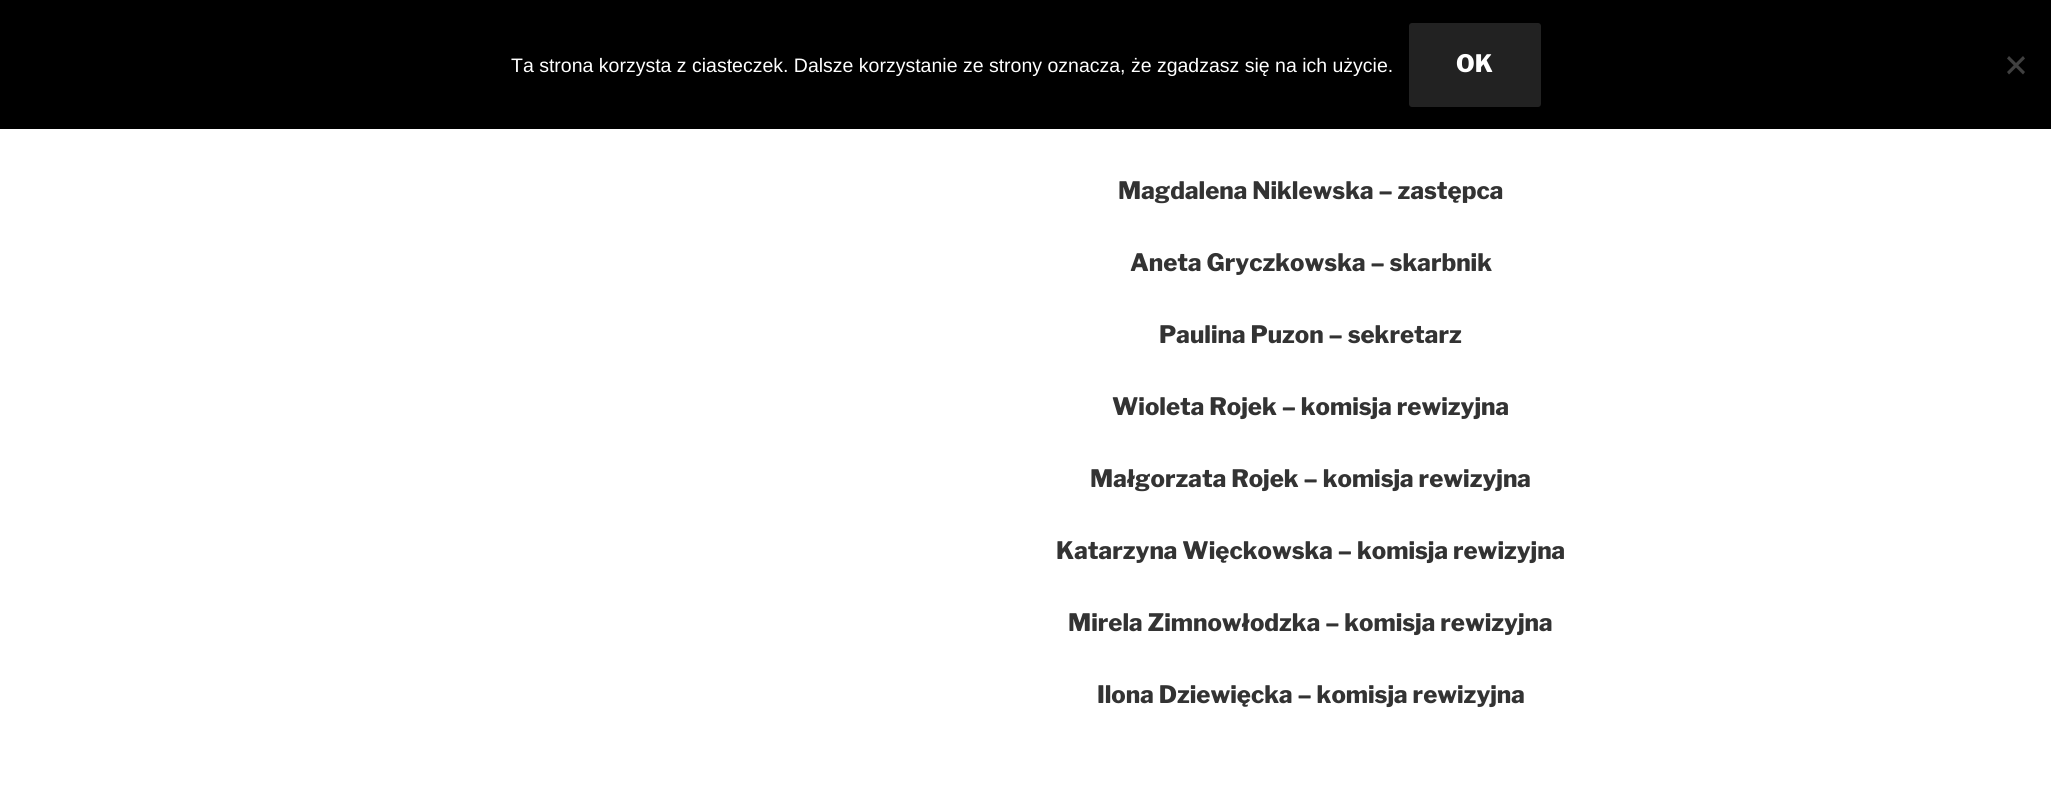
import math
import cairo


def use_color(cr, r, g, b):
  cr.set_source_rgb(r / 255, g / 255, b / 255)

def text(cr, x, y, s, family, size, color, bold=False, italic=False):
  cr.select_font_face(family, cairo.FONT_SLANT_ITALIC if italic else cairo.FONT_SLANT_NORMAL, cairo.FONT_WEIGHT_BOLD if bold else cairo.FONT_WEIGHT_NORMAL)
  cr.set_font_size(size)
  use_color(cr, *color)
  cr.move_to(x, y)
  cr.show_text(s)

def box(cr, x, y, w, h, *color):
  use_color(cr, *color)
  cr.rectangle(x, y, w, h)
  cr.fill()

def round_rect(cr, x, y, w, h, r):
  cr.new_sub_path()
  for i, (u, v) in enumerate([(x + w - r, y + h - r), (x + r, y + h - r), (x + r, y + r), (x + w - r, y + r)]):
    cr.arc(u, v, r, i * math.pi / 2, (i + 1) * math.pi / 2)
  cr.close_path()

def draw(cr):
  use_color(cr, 255, 255, 255)
  cr.paint()
  box(cr, 0, 0, 2051, 129, 0, 0, 0)
  use_color(cr, 34, 34, 34)
  round_rect(cr, 1409, 23, 132, 84, 3)
  cr.fill()
  use_color(cr, 64, 64, 64)
  cr.new_path()
  cr.move_to(2023, 56)
  cr.line_to(2025, 58.5)
  cr.line_to(2009, 74.5)
  cr.line_to(2007, 72)
  cr.close_path()
  cr.fill()
  cr.new_path()
  cr.move_to(2007, 58.5)
  cr.line_to(2009, 56)
  cr.line_to(2025, 72)
  cr.line_to(2023, 74.5)
  cr.close_path()
  cr.fill()
  text(cr, 511, 72, "Ta strona korzysta z ciasteczek. Dalsze korzystanie ze strony oznacza, że zgadzasz się na ich użycie.", "Liberation Sans", 19.5, (255, 255, 255))
  text(cr, 1456, 72, "OK", "Libre Franklin Thin", 24, (255, 255, 255))
  text(cr, 1118, 199, "Magdalena Niklewska – zastępca", "Libre Franklin Thin", 24, (51, 51, 51))
  text(cr, 1130, 271, "Aneta Gryczkowska – skarbnik", "Libre Franklin Thin", 24, (51, 51, 51))
  text(cr, 1159, 343, "Paulina Puzon – sekretarz", "Libre Franklin Thin", 24, (51, 51, 51))
  text(cr, 1112, 415, "Wioleta Rojek – komisja rewizyjna", "Libre Franklin Thin", 24, (51, 51, 51))
  text(cr, 1090, 487, "Małgorzata Rojek – komisja rewizyjna", "Libre Franklin Thin", 24, (51, 51, 51))
  text(cr, 1056, 559, "Katarzyna Więckowska – komisja rewizyjna", "Libre Franklin Thin", 24, (51, 51, 51))
  text(cr, 1068, 631, "Mirela Zimnowłodzka – komisja rewizyjna", "Libre Franklin Thin", 24, (51, 51, 51))
  text(cr, 1097, 703, "Ilona Dziewięcka – komisja rewizyjna", "Libre Franklin Thin", 24, (51, 51, 51))


surface = cairo.ImageSurface(cairo.FORMAT_RGB24, 2051, 789)
cr = cairo.Context(surface)
options = cairo.FontOptions()
options.set_hint_metrics(cairo.HINT_METRICS_OFF)
options.set_hint_style(cairo.HINT_STYLE_NONE)
cr.set_font_options(options)
cr.set_miter_limit(4)
draw(cr)
surface.write_to_png("out.png")
